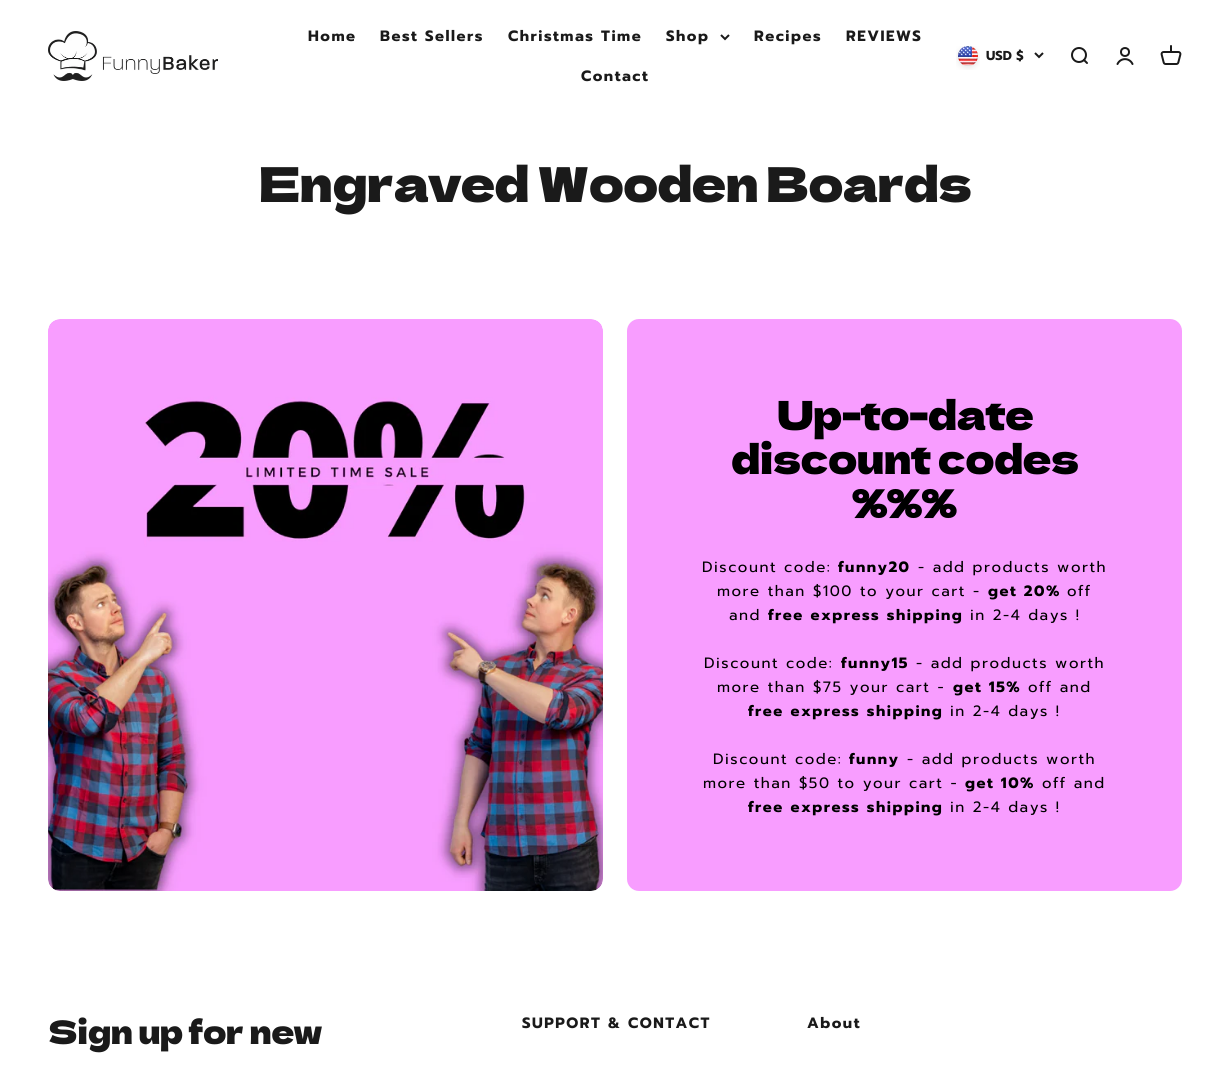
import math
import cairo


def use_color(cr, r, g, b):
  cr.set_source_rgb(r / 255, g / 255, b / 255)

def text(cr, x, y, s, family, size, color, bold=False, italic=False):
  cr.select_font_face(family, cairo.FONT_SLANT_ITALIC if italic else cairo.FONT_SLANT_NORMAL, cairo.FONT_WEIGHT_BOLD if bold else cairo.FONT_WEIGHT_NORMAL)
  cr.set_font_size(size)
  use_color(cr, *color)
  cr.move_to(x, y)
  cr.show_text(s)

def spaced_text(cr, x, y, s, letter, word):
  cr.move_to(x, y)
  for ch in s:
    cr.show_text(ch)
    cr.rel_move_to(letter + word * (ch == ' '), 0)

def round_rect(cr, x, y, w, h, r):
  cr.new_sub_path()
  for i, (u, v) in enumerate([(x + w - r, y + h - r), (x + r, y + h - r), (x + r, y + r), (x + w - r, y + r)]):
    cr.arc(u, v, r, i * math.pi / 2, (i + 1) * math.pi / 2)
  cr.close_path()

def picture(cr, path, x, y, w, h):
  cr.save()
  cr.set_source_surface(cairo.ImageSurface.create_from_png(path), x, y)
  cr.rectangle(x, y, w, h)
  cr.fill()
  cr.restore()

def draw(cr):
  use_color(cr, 255, 255, 255)
  cr.paint()
  picture(cr, "img_01.png", 48, 31, 170, 50)
  cr.new_path()
  cr.move_to(721, 35)
  cr.line_to(725, 39)
  cr.line_to(729, 35)
  use_color(cr, 26, 26, 26)
  cr.stroke()
  picture(cr, "img_02.png", 956, 46, 24, 24)
  cr.new_path()
  cr.move_to(1035, 53)
  cr.line_to(1039, 57)
  cr.line_to(1043, 53)
  cr.stroke()
  picture(cr, "img_03.png", 1071, 47, 17, 17)
  cr.arc(1125, 52, 4, 0, 2 * math.pi)
  cr.stroke()
  cr.new_path()
  cr.move_to(1117.5, 64)
  cr.curve_to(1120.5, 57.5, 1129.5, 57.5, 1132.5, 64)
  cr.set_line_cap(cairo.LINE_CAP_ROUND)
  cr.stroke()
  picture(cr, "img_04.png", 1160, 45, 22, 20)
  picture(cr, "img_05.png", 48, 319, 555, 572)
  use_color(cr, 248, 157, 255)
  round_rect(cr, 627, 319, 555, 572, 12)
  cr.fill()
  cr.select_font_face("Prompt", cairo.FONT_SLANT_NORMAL, cairo.FONT_WEIGHT_BOLD)
  cr.set_font_size(15)
  use_color(cr, 26, 26, 26)
  spaced_text(cr, 308, 41, "Home", 1.5, 0)
  spaced_text(cr, 380, 41, "Best Sellers", 1.5, 0)
  spaced_text(cr, 508, 41, "Christmas Time", 1.5, 0)
  spaced_text(cr, 666, 41, "Shop", 1.5, 0)
  spaced_text(cr, 754, 41, "Recipes", 1.5, 0)
  spaced_text(cr, 846, 41, "REVIEWS", 1.5, 0)
  spaced_text(cr, 581, 81, "Contact", 1.5, 0)
  text(cr, 986, 60, "USD $", "Prompt", 13, (26, 26, 26), bold=True)
  cr.select_font_face("Dela Gothic One")
  cr.set_font_size(48)
  spaced_text(cr, 259, 202, "Engraved Wooden Boards", -1, 0)
  cr.set_font_size(40)
  use_color(cr, 0, 0, 0)
  spaced_text(cr, 777, 430, "Up-to-date", -0.75, 0)
  spaced_text(cr, 731, 474, "discount codes", -0.75, 0)
  spaced_text(cr, 852, 518, "%%%", -0.75, 0)
  cr.select_font_face("Prompt")
  cr.set_font_size(15)
  spaced_text(cr, 702, 572, "Discount code:", 1.5, 0)
  cr.select_font_face("Prompt", cairo.FONT_SLANT_NORMAL, cairo.FONT_WEIGHT_BOLD)
  spaced_text(cr, 838, 572, "funny20", 1.5, 0)
  cr.select_font_face("Prompt")
  spaced_text(cr, 918, 572, "- add products worth", 1.5, 0)
  spaced_text(cr, 717, 596, "more than $100 to your cart -", 1.5, 0)
  cr.select_font_face("Prompt", cairo.FONT_SLANT_NORMAL, cairo.FONT_WEIGHT_BOLD)
  spaced_text(cr, 988, 596, "get 20%", 1.5, 0)
  cr.select_font_face("Prompt")
  spaced_text(cr, 1067, 596, "off", 1.5, 0)
  spaced_text(cr, 729, 620, "and", 1.5, 0)
  cr.select_font_face("Prompt", cairo.FONT_SLANT_NORMAL, cairo.FONT_WEIGHT_BOLD)
  spaced_text(cr, 768, 620, "free express shipping", 1.5, 0)
  cr.select_font_face("Prompt")
  spaced_text(cr, 970, 620, "in 2-4 days !", 1.5, 0)
  spaced_text(cr, 704, 668, "Discount code:", 1.5, 0)
  cr.select_font_face("Prompt", cairo.FONT_SLANT_NORMAL, cairo.FONT_WEIGHT_BOLD)
  spaced_text(cr, 841, 668, "funny15", 1.5, 0)
  cr.select_font_face("Prompt")
  spaced_text(cr, 916, 668, "- add products worth", 1.5, 0)
  spaced_text(cr, 717, 692, "more than $75 your cart -", 1.5, 0)
  cr.select_font_face("Prompt", cairo.FONT_SLANT_NORMAL, cairo.FONT_WEIGHT_BOLD)
  spaced_text(cr, 953, 692, "get 15%", 1.5, 0)
  cr.select_font_face("Prompt")
  spaced_text(cr, 1028, 692, "off and", 1.5, 0)
  cr.select_font_face("Prompt", cairo.FONT_SLANT_NORMAL, cairo.FONT_WEIGHT_BOLD)
  spaced_text(cr, 748, 716, "free express shipping", 1.5, 0)
  cr.select_font_face("Prompt")
  spaced_text(cr, 950, 716, "in 2-4 days !", 1.5, 0)
  spaced_text(cr, 713, 764, "Discount code:", 1.5, 0)
  cr.select_font_face("Prompt", cairo.FONT_SLANT_NORMAL, cairo.FONT_WEIGHT_BOLD)
  spaced_text(cr, 849, 764, "funny", 1.5, 0)
  cr.select_font_face("Prompt")
  spaced_text(cr, 907, 764, "- add products worth", 1.5, 0)
  spaced_text(cr, 703, 788, "more than $50 to your cart -", 1.5, 0)
  cr.select_font_face("Prompt", cairo.FONT_SLANT_NORMAL, cairo.FONT_WEIGHT_BOLD)
  spaced_text(cr, 965, 788, "get 10%", 1.5, 0)
  cr.select_font_face("Prompt")
  spaced_text(cr, 1042, 788, "off and", 1.5, 0)
  cr.select_font_face("Prompt", cairo.FONT_SLANT_NORMAL, cairo.FONT_WEIGHT_BOLD)
  spaced_text(cr, 748, 812, "free express shipping", 1.5, 0)
  cr.select_font_face("Prompt")
  spaced_text(cr, 950, 812, "in 2-4 days !", 1.5, 0)
  cr.select_font_face("Dela Gothic One")
  cr.set_font_size(32)
  use_color(cr, 26, 26, 26)
  spaced_text(cr, 48, 1044, "Sign up for new", -0.6, 0)
  cr.select_font_face("Prompt", cairo.FONT_SLANT_NORMAL, cairo.FONT_WEIGHT_BOLD)
  cr.set_font_size(15)
  spaced_text(cr, 522, 1028, "SUPPORT & CONTACT", 1.5, 0)
  spaced_text(cr, 807, 1028, "About", 1.5, 0)


surface = cairo.ImageSurface(cairo.FORMAT_RGB24, 1230, 1066)
cr = cairo.Context(surface)
options = cairo.FontOptions()
options.set_hint_metrics(cairo.HINT_METRICS_OFF)
options.set_hint_style(cairo.HINT_STYLE_NONE)
cr.set_font_options(options)
cr.set_miter_limit(4)
draw(cr)
surface.write_to_png("out.png")
